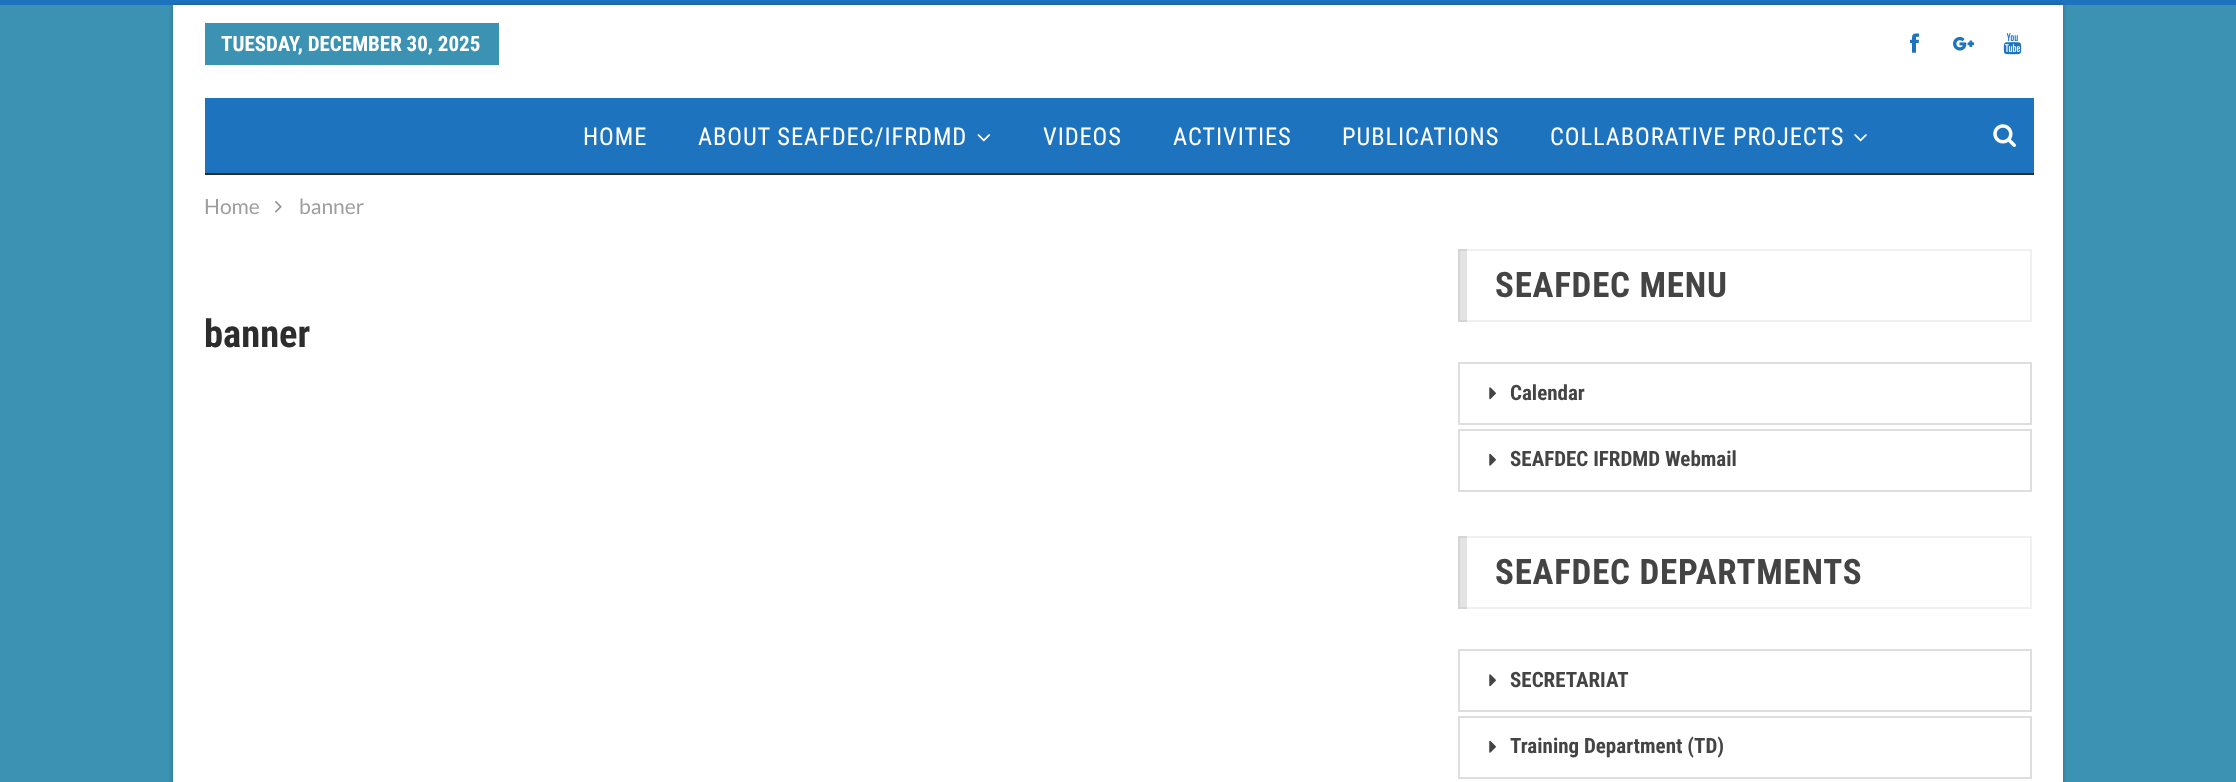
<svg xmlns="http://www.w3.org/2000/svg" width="2236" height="782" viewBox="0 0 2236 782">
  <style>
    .t1 { font: bold 21px Roboto Condensed; fill: #fff; }
    .t2 { font: 24.5px Roboto Condensed; letter-spacing: 0.9px; fill: #fff; }
    .t3 { font: 21px Lato; fill: #9e9e9e; }
    .t4 { font: bold 38.5px Roboto Condensed; fill: #2d2d2d; }
    .t5 { font: bold 35px Roboto Condensed; letter-spacing: 0.75px; fill: #444; }
    .t6 { font: bold 21px Roboto Condensed; fill: #444; }
  </style>
  <rect width="100%" height="100%" fill="#3c92b3"/>
  <rect x="0" y="0" width="2236" height="5" fill="#1e73be"/>
  <rect x="173" y="5" width="1890" height="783" fill="#00000045" filter="blur(2px)"/>
  <rect x="173" y="5" width="1890" height="777" fill="#fff"/>
  <rect x="205" y="23" width="294" height="42" fill="#3c92b3"/>
  <text x="221" y="51" class="t1">TUESDAY, DECEMBER 30, 2025</text>
  <image x="1910" y="33" width="9" height="20" href="images/1.png"/>
  <image x="1953" y="36" width="21" height="15" href="images/2.png"/>
  <image x="2003" y="33" width="19" height="22" href="images/3.png"/>
  <rect x="205" y="98" width="1829" height="75" fill="#1e73be"/>
  <rect x="205" y="173" width="1829" height="2" fill="#292929"/>
  <text x="583" y="145" class="t2">HOME</text>
  <text x="698" y="145" class="t2">ABOUT SEAFDEC/IFRDMD</text>
  <image x="977" y="134" width="14" height="8" href="images/4.png"/>
  <text x="1043" y="145" class="t2">VIDEOS</text>
  <text x="1173" y="145" class="t2">ACTIVITIES</text>
  <text x="1342" y="145" class="t2">PUBLICATIONS</text>
  <text x="1550" y="145" class="t2">COLLABORATIVE PROJECTS</text>
  <image x="1854" y="134" width="13" height="8" href="images/5.png"/>
  <image x="1993" y="124" width="23" height="23" href="images/6.png"/>
  <text x="204" y="214" class="t3">Home</text>
  <image x="275" y="201" width="7" height="12" href="images/7.png"/>
  <text x="299" y="214" class="t3">banner</text>
  <text x="204" y="347" class="t4">banner</text>
  <rect x="1459" y="250" width="572" height="71" fill="none" stroke="#f0f0f0" stroke-width="2"/>
  <rect x="1458" y="249" width="9" height="73" fill="#0000001c"/>
  <text x="1495" y="297" class="t5">SEAFDEC MENU</text>
  <rect x="1459" y="363" width="572" height="61" fill="none" stroke="#dedede" stroke-width="2"/>
  <image x="1489" y="387" width="7" height="13" href="images/8.png"/>
  <text x="1510" y="400" class="t6">Calendar</text>
  <rect x="1459" y="430" width="572" height="61" fill="none" stroke="#dedede" stroke-width="2"/>
  <image x="1489" y="453" width="7" height="13" href="images/9.png"/>
  <text x="1510" y="466" class="t6">SEAFDEC IFRDMD Webmail</text>
  <rect x="1459" y="537" width="572" height="71" fill="none" stroke="#f0f0f0" stroke-width="2"/>
  <rect x="1458" y="536" width="9" height="73" fill="#0000001c"/>
  <text x="1495" y="584" class="t5">SEAFDEC DEPARTMENTS</text>
  <rect x="1459" y="650" width="572" height="61" fill="none" stroke="#dedede" stroke-width="2"/>
  <image x="1489" y="674" width="7" height="13" href="images/8.png"/>
  <text x="1510" y="687" class="t6">SECRETARIAT</text>
  <rect x="1459" y="717" width="572" height="61" fill="none" stroke="#dedede" stroke-width="2"/>
  <image x="1489" y="740" width="7" height="13" href="images/9.png"/>
  <text x="1510" y="753" class="t6">Training Department (TD)</text>
</svg>
